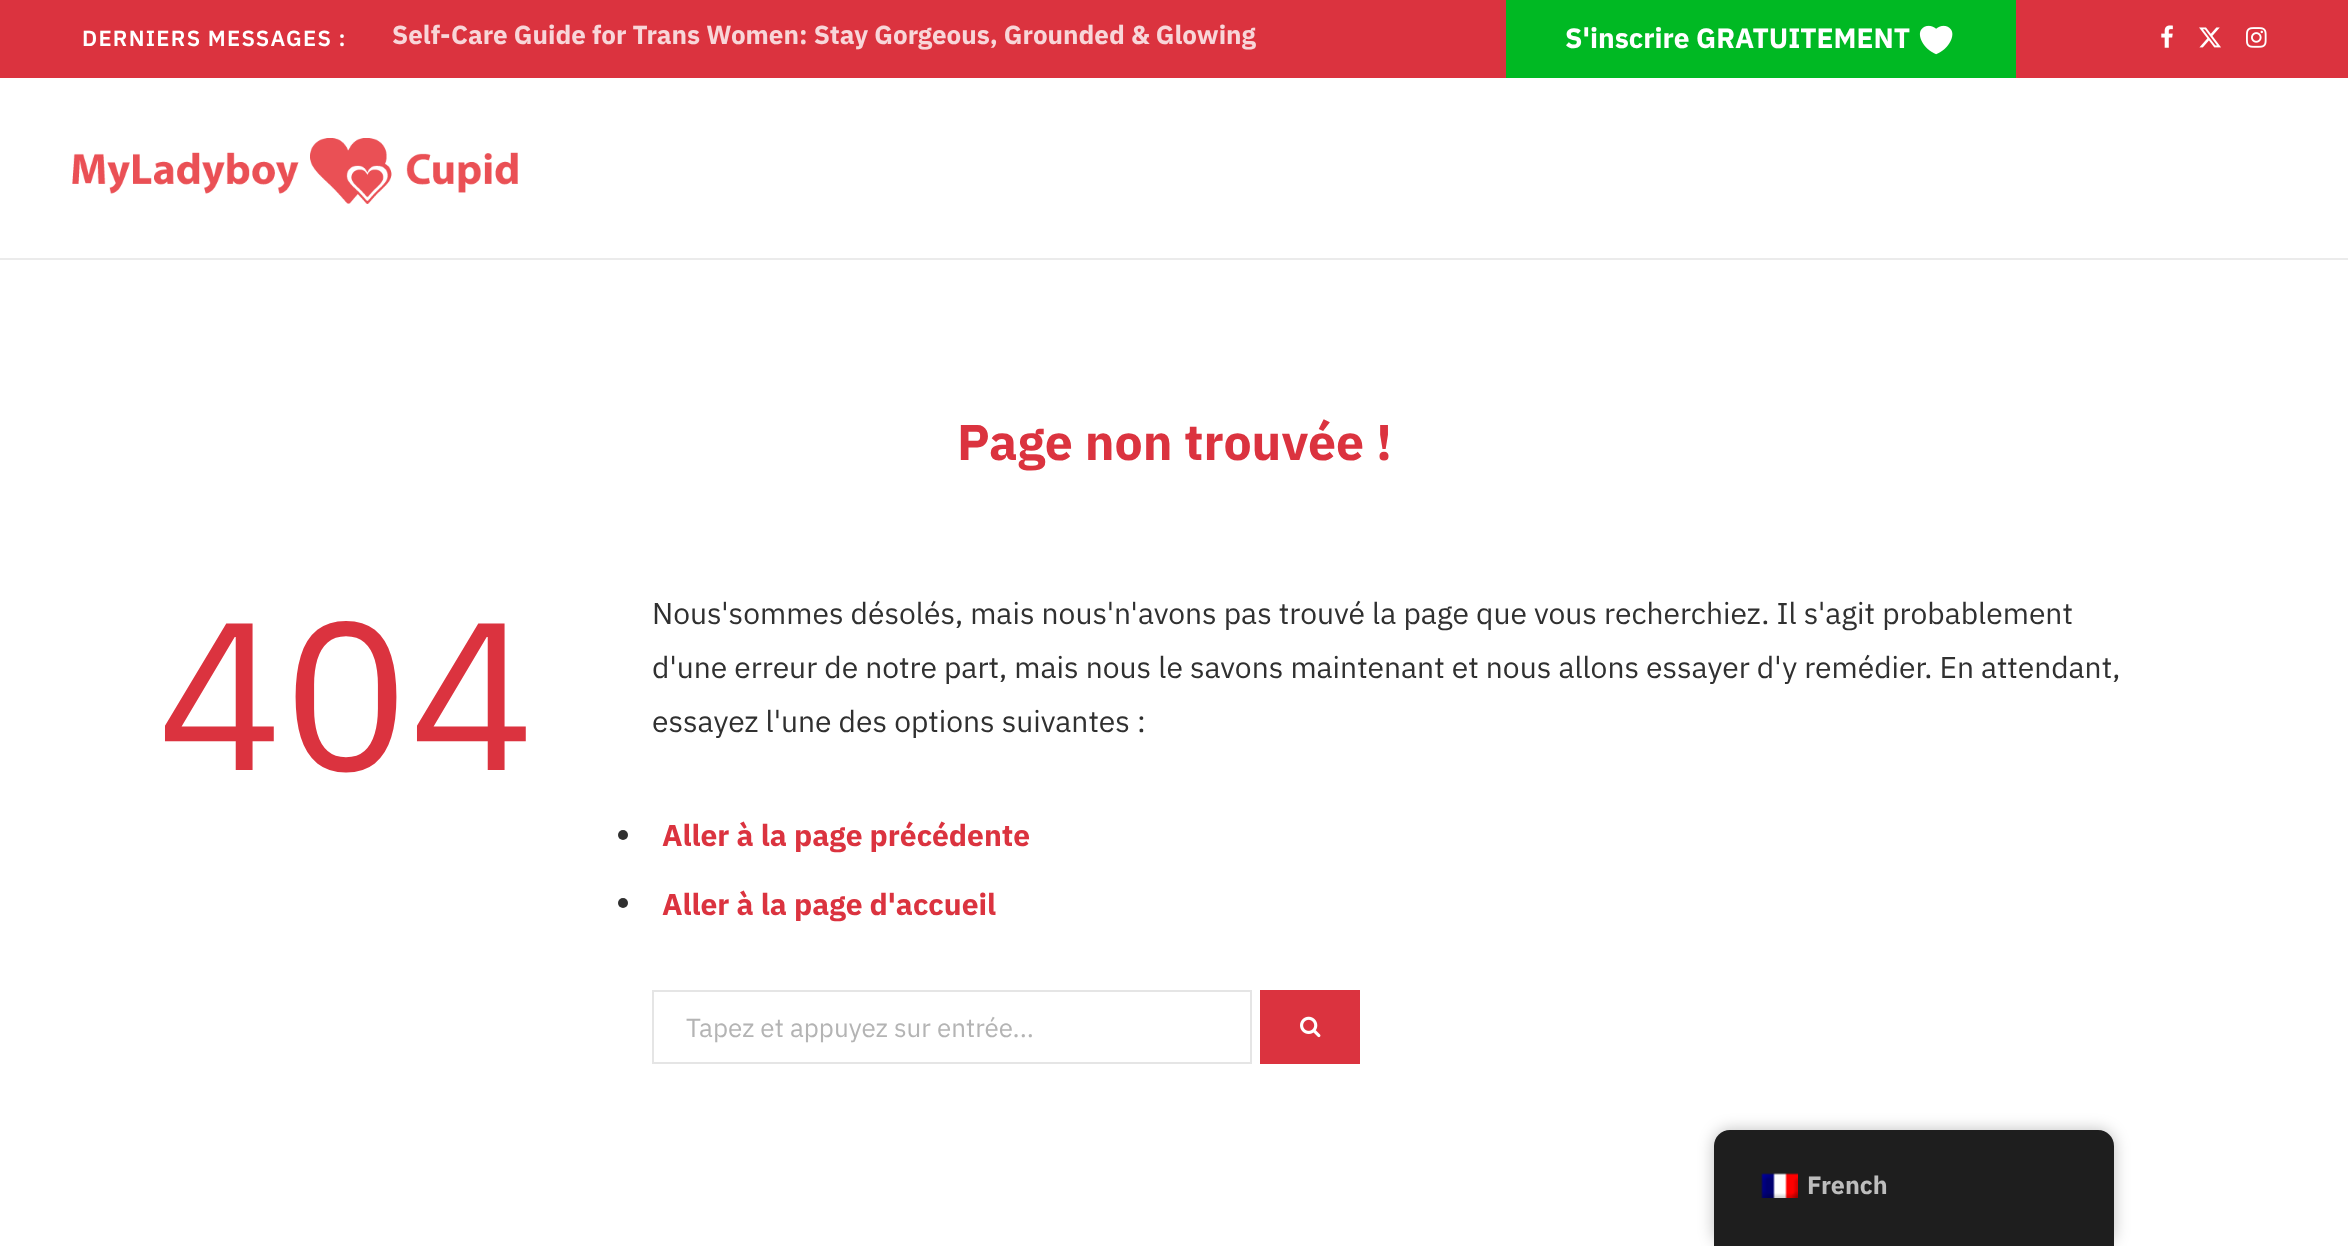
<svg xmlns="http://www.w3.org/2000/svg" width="2348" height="1246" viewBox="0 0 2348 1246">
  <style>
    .t1 { font: 600 22px IBM Plex Sans; letter-spacing: 1.25px; fill: #fff; }
    .t2 { font: bold 26px IBM Plex Sans; fill: #f8d6d9; }
    .t3 { font: bold 28px IBM Plex Sans; fill: #fff; }
    .t4 { font: bold 50px IBM Plex Sans; fill: #db333f; }
    .t5 { font: 210px IBM Plex Sans; fill: #db333f; }
    .t6 { font: 30px IBM Plex Sans; fill: #303030; }
    .t7 { font: bold 30px IBM Plex Sans; fill: #db333f; }
    .t8 { font: 26px IBM Plex Sans; fill: #b4b4b4; }
    .t9 { font: bold 25px IBM Plex Sans; fill: #bdbdbd; }
  </style>
  <rect width="100%" height="100%" fill="#fff"/>
  <rect x="0" y="258" width="2348" height="2" fill="#ebebeb"/>
  <rect x="0" y="0" width="2348" height="78" fill="#db333f"/>
  <text x="82" y="46" class="t1">DERNIERS MESSAGES :</text>
  <text x="392" y="44" class="t2">Self-Care Guide for Trans Women: Stay Gorgeous, Grounded &amp; Glowing</text>
  <rect x="1506" y="0" width="510" height="78" fill="#00b923"/>
  <text x="1565" y="48" class="t3">S'inscrire GRATUITEMENT</text>
  <image x="1919" y="25" width="34" height="30" href="images/1.png"/>
  <image x="2161" y="25" width="12" height="23" href="images/2.png"/>
  <image x="2199" y="27" width="22" height="21" href="images/3.png"/>
  <image x="2246" y="27" width="21" height="21" href="images/4.png"/>
  <image x="72" y="138" width="446" height="66" href="images/5.png"/>
  <text x="957" y="460" class="t4">Page non trouvée !</text>
  <text x="157" y="770" class="t5">404</text>
  <text x="652" y="624" class="t6">Nous'sommes désolés, mais nous'n'avons pas trouvé la page que vous recherchiez. Il s'agit probablement</text>
  <text x="652" y="678" class="t6">d'une erreur de notre part, mais nous le savons maintenant et nous allons essayer d'y remédier. En attendant,</text>
  <text x="652" y="732" class="t6">essayez l'une des options suivantes :</text>
  <circle cx="623" cy="835" r="5" fill="#303030"/>
  <text x="662" y="846" class="t7">Aller à la page précédente</text>
  <circle cx="623" cy="903" r="5" fill="#303030"/>
  <text x="662" y="915" class="t7">Aller à la page d'accueil</text>
  <rect x="653" y="991" width="598" height="72" fill="none" stroke="#e5e5e5" stroke-width="2"/>
  <text x="686" y="1037" class="t8">Tapez et appuyez sur entrée...</text>
  <rect x="1260" y="990" width="100" height="74" fill="#db333f"/>
  <image x="1300" y="1016" width="21" height="22" href="images/6.png"/>
  <rect x="1714" y="1130" width="400" height="116" rx="16" fill="#00000040" filter="blur(8px)"/>
  <path d="M1730 1130H2098C2107 1130 2114 1137 2114 1146V1246H1714V1146C1714 1137 1721 1130 1730 1130Z" fill="#1e1e1e"/>
  <image x="1761" y="1173" width="37" height="25" href="images/7.png"/>
  <text x="1807" y="1194" class="t9">French</text>
</svg>
